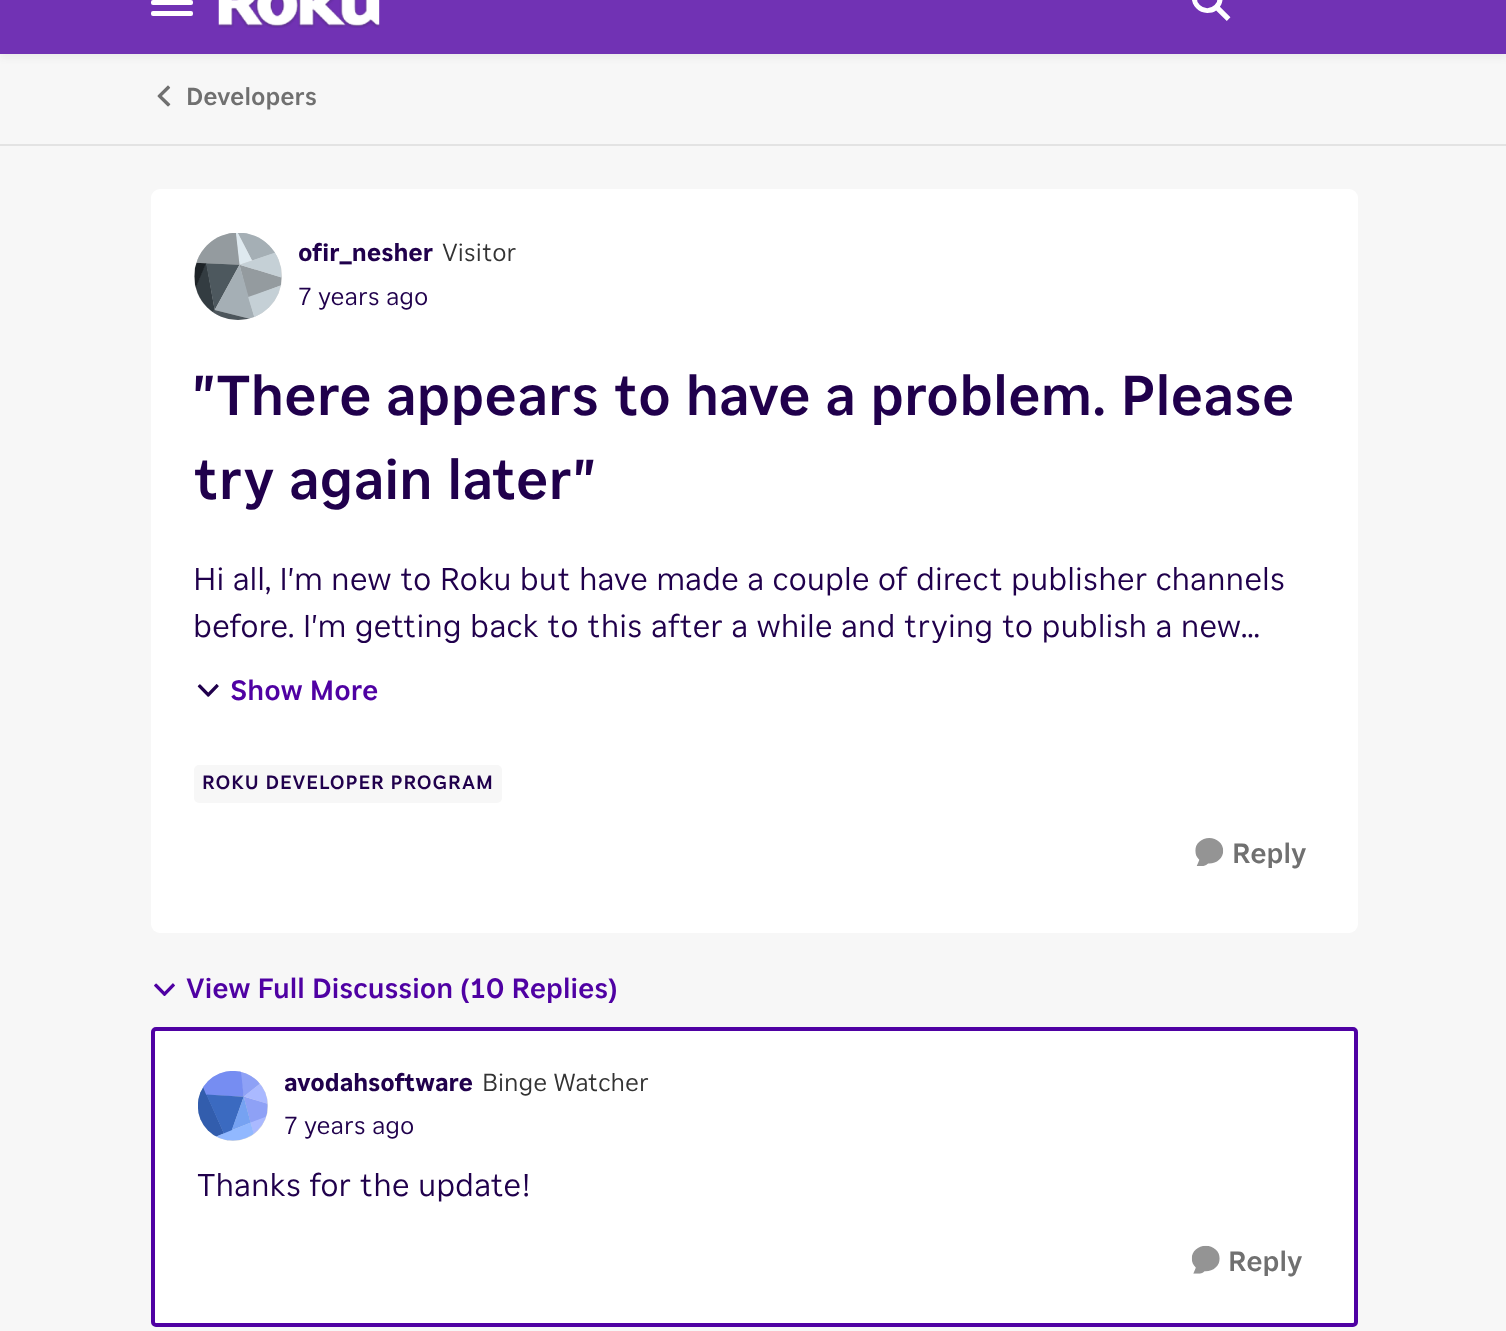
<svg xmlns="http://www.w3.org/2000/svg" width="1506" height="1331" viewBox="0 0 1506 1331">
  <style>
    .t1 { font: 500 24.5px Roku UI; fill: #707070; }
    .t2 { font: bold 24.5px Roku UI; fill: #20004c; }
    .t3 { font: 24.5px Roku UI; fill: #333; }
    .t4 { font: 24.5px Roku UI; fill: #20004c; }
    .t5 { font: 500 56px Roku UI; fill: #20004c; }
    .t6 { font: 31.5px Roku UI; fill: #20004c; }
    .t7 { font: 500 28px Roku UI; fill: #4f01a3; }
    .t8 { font: 500 19.25px Roku UI; letter-spacing: 0.9px; fill: #20004c; }
    .t9 { font: 500 28px Roku UI; fill: #707070; }
  </style>
  <rect width="100%" height="100%" fill="#f7f7f7"/>
  <rect x="0" y="-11" width="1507" height="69" fill="#3333330f" filter="blur(3.5px)"/>
  <rect x="0" y="0" width="1506" height="54" fill="#7132b4"/>
  <rect x="151" y="0" width="42" height="5" rx="2" fill="#fff"/>
  <rect x="151" y="11" width="42" height="5" rx="2" fill="#fff"/>
  <image x="218" y="0" width="162" height="28" href="images/1.png"/>
  <image x="1192" y="0" width="39" height="21" href="images/2.png"/>
  <rect x="0" y="144" width="1506" height="2" fill="#e3e3e3"/>
  <image x="157" y="85" width="14" height="22" href="images/3.png"/>
  <text x="186" y="105" class="t1">Developers</text>
  <rect x="151" y="189" width="1207" height="744" rx="9" fill="#fff"/>
  <rect x="194" y="233" width="88" height="87" rx="43.5" fill="#d9d9d9"/>
  <image x="194" y="233" width="88" height="87" href="images/4.png"/>
  <text x="298" y="261" class="t2">ofir_nesher</text>
  <text x="442" y="261" class="t3">Visitor</text>
  <text x="298" y="305" class="t4">7 years ago</text>
  <text x="193" y="415" class="t5">"There appears to have a problem. Please</text>
  <text x="193" y="499" class="t5">try again later"</text>
  <text x="193" y="590" class="t6">Hi all, I'm new to Roku but have made a couple of direct publisher channels</text>
  <text x="193" y="637" class="t6">before. I'm getting back to this after a while and trying to publish a new…</text>
  <image x="197" y="684" width="22" height="13" href="images/5.png"/>
  <text x="230" y="700" class="t7">Show More</text>
  <rect x="194" y="765" width="308" height="38" rx="5" fill="#f7f7f7"/>
  <text x="202" y="789" class="t8">ROKU DEVELOPER PROGRAM</text>
  <image x="1195" y="838" width="29" height="28" href="images/6.png"/>
  <text x="1232" y="863" class="t9">Reply</text>
  <image x="154" y="983" width="21" height="13" href="images/7.png"/>
  <text x="186" y="998" class="t7">View Full Discussion (10 Replies)</text>
  <rect x="153" y="1029" width="1203" height="296" rx="3" fill="#fff" stroke="#4f01a3" stroke-width="4"/>
  <circle cx="233" cy="1106" r="35" fill="#d9d9d9"/>
  <image x="198" y="1071" width="70" height="70" href="images/8.png"/>
  <text x="284" y="1091" class="t2">avodahsoftware</text>
  <text x="482" y="1091" class="t3">Binge Watcher</text>
  <text x="284" y="1134" class="t4">7 years ago</text>
  <text x="197" y="1196" class="t6">Thanks for the update!</text>
  <image x="1191" y="1245" width="29" height="29" href="images/9.png"/>
  <text x="1228" y="1271" class="t9">Reply</text>
</svg>
